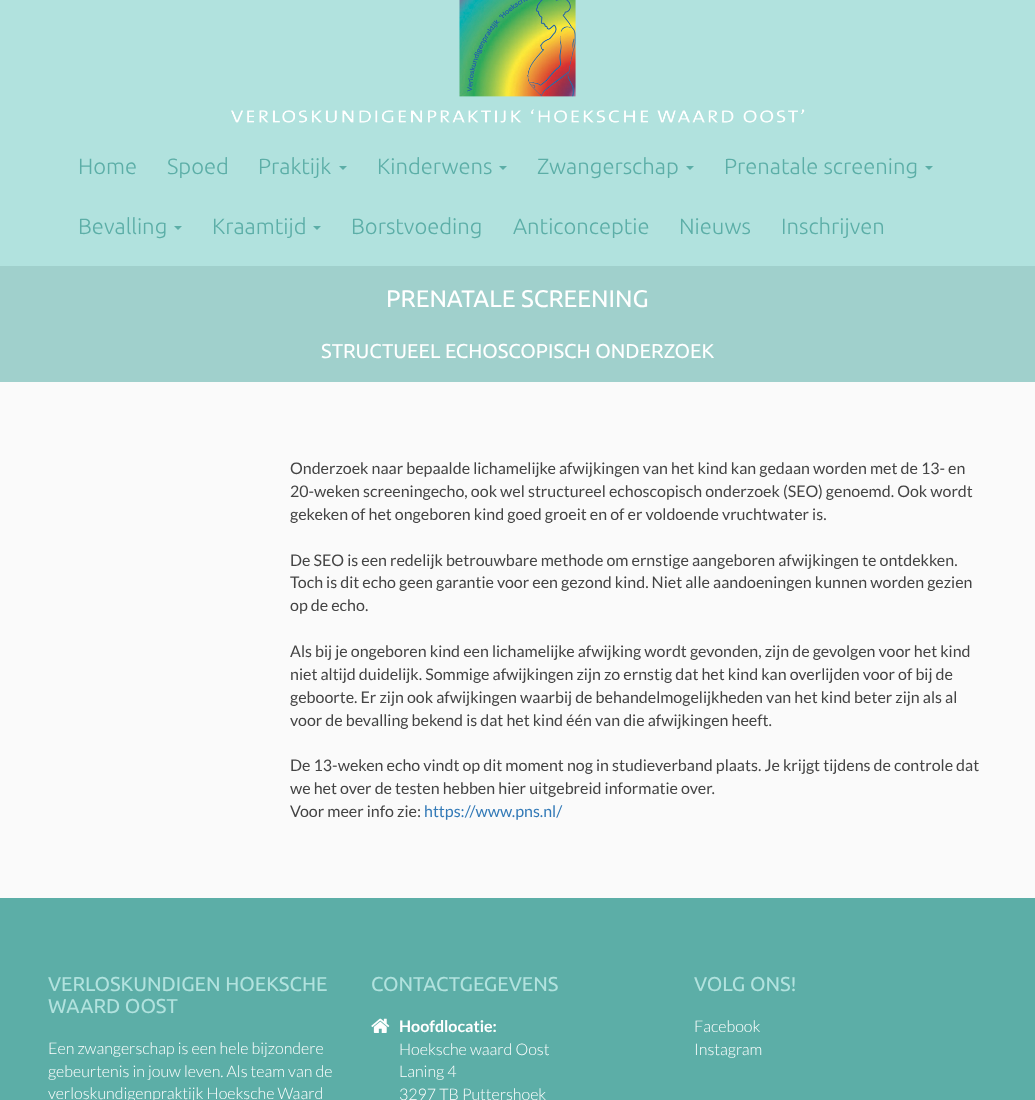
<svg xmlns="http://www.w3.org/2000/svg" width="1035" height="1100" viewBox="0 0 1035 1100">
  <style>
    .t1 { font: 300 22px Ubuntu; fill: #5caea7; }
    .t2 { font: 24px Ubuntu; fill: #fff; }
    .t3 { font: 20px Ubuntu; fill: #fff; }
    .t4 { font: 16px Lato; fill: #444; }
    .t5 { font: 16px Lato; fill: #337ab7; }
    .t6 { font: 20px Ubuntu; fill: #b1e2de; }
    .t7 { font: 300 16px Lato; fill: #fff; }
    .t8 { font: bold 16px Lato; fill: #fff; }
  </style>
  <rect width="100%" height="100%" fill="#fafafa"/>
  <rect x="0" y="0" width="1035" height="266" fill="#b1e2de"/>
  <image x="231" y="0" width="574" height="123" href="images/1.png"/>
  <text x="78" y="174" class="t1">Home</text>
  <text x="167" y="174" class="t1">Spoed</text>
  <text x="258" y="174" class="t1">Praktijk</text>
  <path d="M339 166H347L343 170Z" fill="#5caea7"/>
  <text x="377" y="174" class="t1">Kinderwens</text>
  <path d="M499 166H507L503 170Z" fill="#5caea7"/>
  <text x="537" y="174" class="t1">Zwangerschap</text>
  <path d="M686 166H694L690 170Z" fill="#5caea7"/>
  <text x="724" y="174" class="t1">Prenatale screening</text>
  <path d="M925 166H933L929 170Z" fill="#5caea7"/>
  <text x="78" y="234" class="t1">Bevalling</text>
  <path d="M174 226H182L178 230Z" fill="#5caea7"/>
  <text x="212" y="234" class="t1">Kraamtijd</text>
  <path d="M313 226H321L317 230Z" fill="#5caea7"/>
  <text x="351" y="234" class="t1">Borstvoeding</text>
  <text x="513" y="234" class="t1">Anticonceptie</text>
  <text x="679" y="234" class="t1">Nieuws</text>
  <text x="781" y="234" class="t1">Inschrijven</text>
  <rect x="0" y="266" width="1035" height="116" fill="#a0d0cc"/>
  <text x="386" y="307" class="t2">PRENATALE SCREENING</text>
  <text x="321" y="358" class="t3">STRUCTUEEL ECHOSCOPISCH ONDERZOEK</text>
  <text x="290" y="474" class="t4">Onderzoek naar bepaalde lichamelijke afwijkingen van het kind kan gedaan worden met de 13- en</text>
  <text x="290" y="497" class="t4">20-weken screeningecho, ook wel structureel echoscopisch onderzoek (SEO) genoemd. Ook wordt</text>
  <text x="290" y="520" class="t4">gekeken of het ongeboren kind goed groeit en of er voldoende vruchtwater is.</text>
  <text x="290" y="566" class="t4">De SEO is een redelijk betrouwbare methode om ernstige aangeboren afwijkingen te ontdekken.</text>
  <text x="290" y="588" class="t4">Toch is dit echo geen garantie voor een gezond kind. Niet alle aandoeningen kunnen worden gezien</text>
  <text x="290" y="611" class="t4">op de echo.</text>
  <text x="290" y="657" class="t4">Als bij je ongeboren kind een lichamelijke afwijking wordt gevonden, zijn de gevolgen voor het kind</text>
  <text x="290" y="680" class="t4">niet altijd duidelijk. Sommige afwijkingen zijn zo ernstig dat het kind kan overlijden voor of bij de</text>
  <text x="290" y="703" class="t4">geboorte. Er zijn ook afwijkingen waarbij de behandelmogelijkheden van het kind beter zijn als al</text>
  <text x="290" y="726" class="t4">voor de bevalling bekend is dat het kind één van die afwijkingen heeft.</text>
  <text x="290" y="771" class="t4">De 13-weken echo vindt op dit moment nog in studieverband plaats. Je krijgt tijdens de controle dat</text>
  <text x="290" y="794" class="t4">we het over de testen hebben hier uitgebreid informatie over.</text>
  <text x="290" y="817" class="t4">Voor meer info zie:</text>
  <text x="424" y="817" class="t5">https://www.pns.nl/</text>
  <rect x="0" y="898" width="1035" height="202" fill="#5caea7"/>
  <text x="48" y="991" class="t6">VERLOSKUNDIGEN HOEKSCHE</text>
  <text x="48" y="1013" class="t6">WAARD OOST</text>
  <text x="48" y="1054" class="t7">Een zwangerschap is een hele bijzondere</text>
  <text x="48" y="1077" class="t7">gebeurtenis in jouw leven. Als team van de</text>
  <text x="48" y="1099" class="t7">verloskundigenpraktijk Hoeksche Waard</text>
  <text x="371" y="991" class="t6">CONTACTGEGEVENS</text>
  <image x="371" y="1018" width="19" height="15" href="images/2.png"/>
  <text x="399" y="1032" class="t8">Hoofdlocatie:</text>
  <text x="399" y="1055" class="t7">Hoeksche waard Oost</text>
  <text x="399" y="1077" class="t7">Laning 4</text>
  <text x="399" y="1100" class="t7">3297 TB Puttershoek</text>
  <text x="694" y="991" class="t6">VOLG ONS!</text>
  <text x="694" y="1032" class="t7">Facebook</text>
  <text x="694" y="1055" class="t7">Instagram</text>
</svg>
